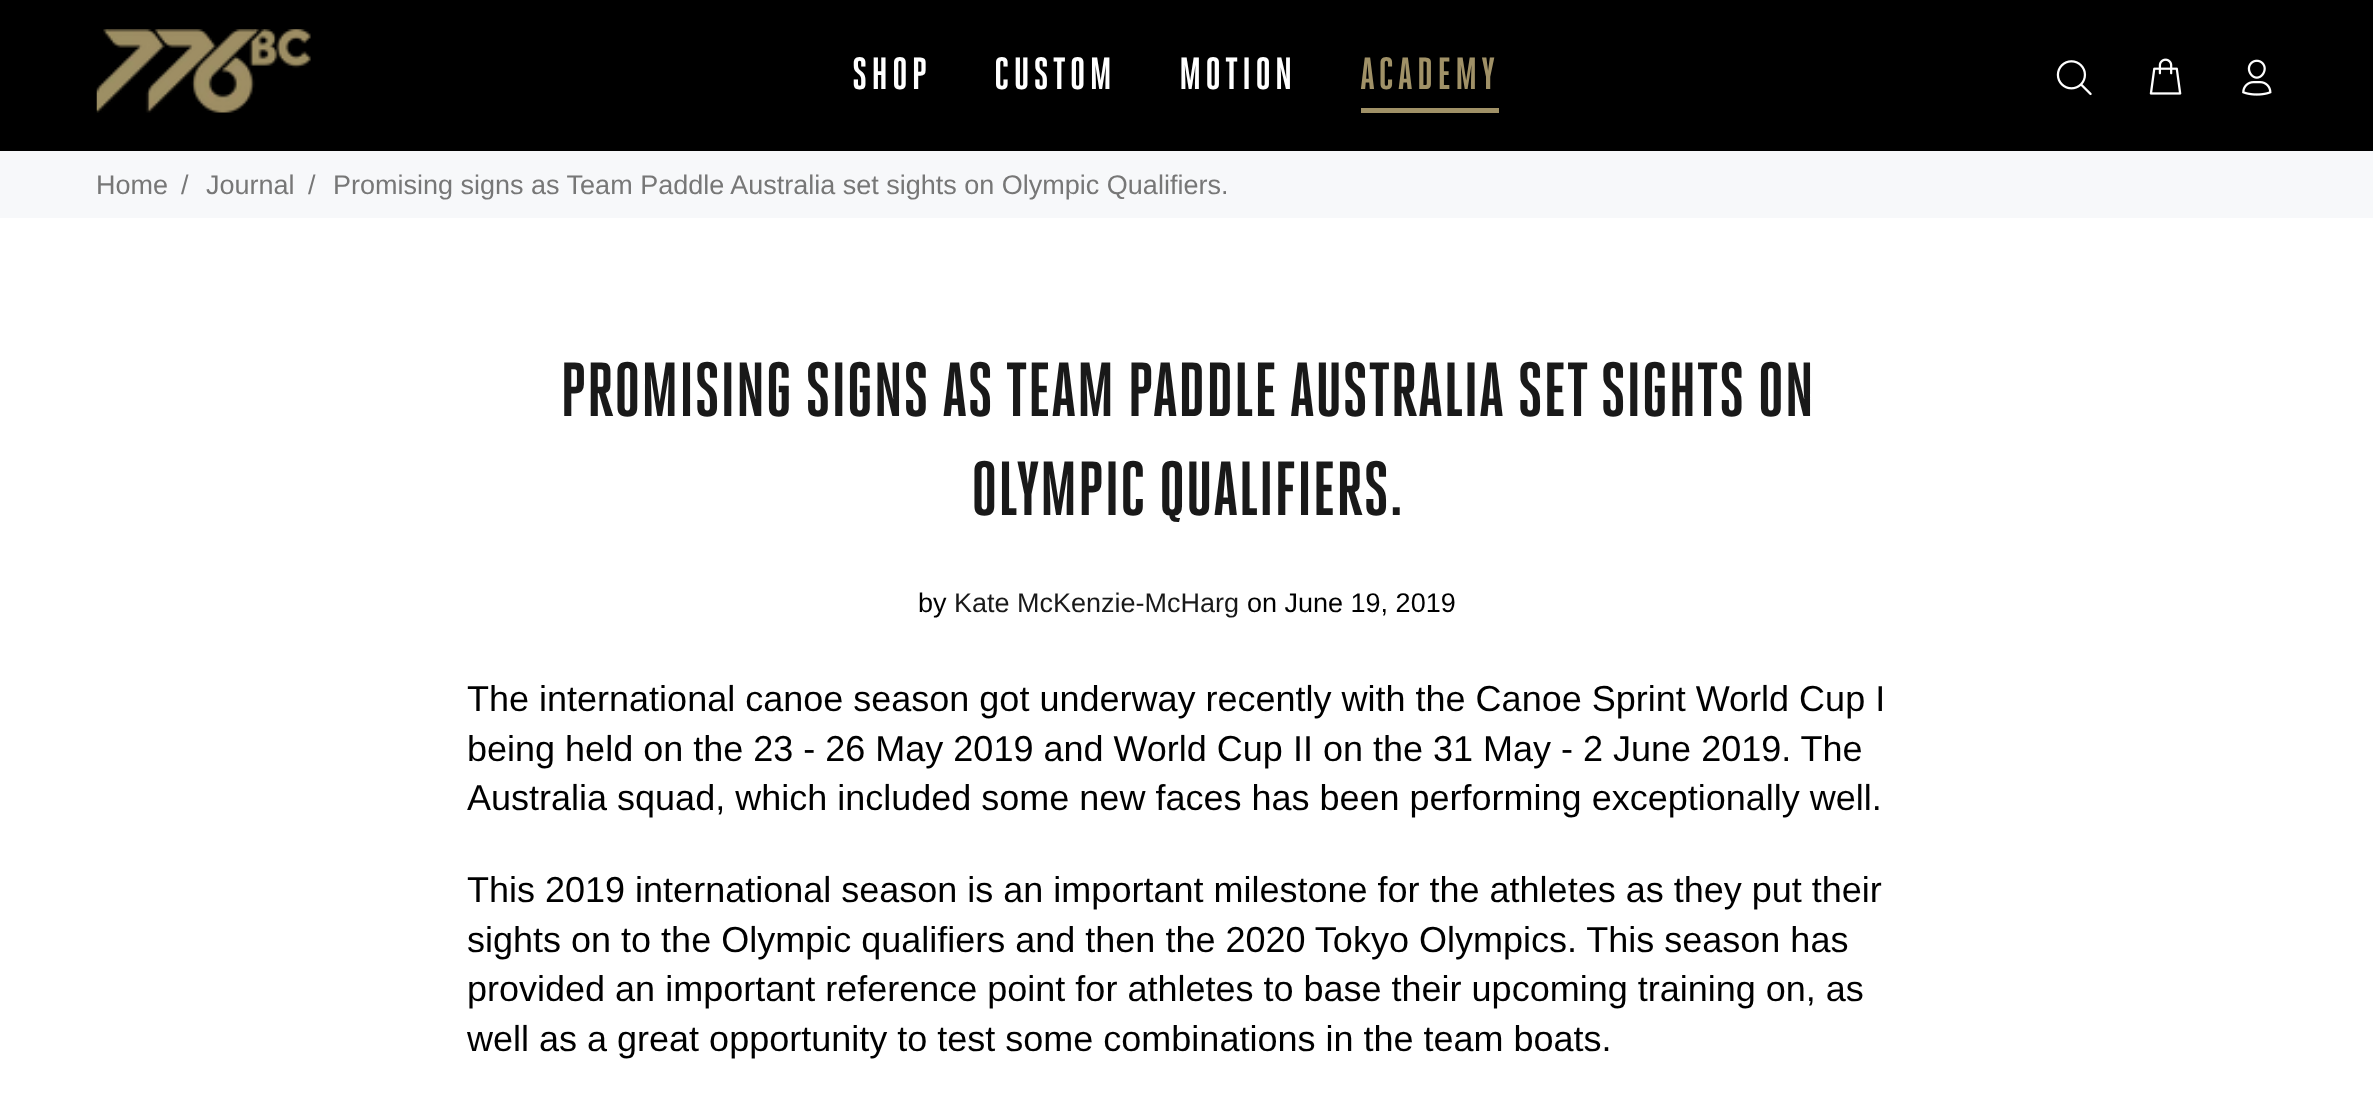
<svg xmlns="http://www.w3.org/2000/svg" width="2373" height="1098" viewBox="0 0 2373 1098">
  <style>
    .t1 { font: bold 45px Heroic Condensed; letter-spacing: 4px; fill: #fff; }
    .t2 { font: bold 45px Heroic Condensed; letter-spacing: 4px; fill: #a09167; }
    .t3 { font: 27px Liberation Sans; fill: #777; }
    .t4 { font: bold 76.5px Heroic Condensed; fill: #191919; }
    .t5 { font: 27px Liberation Sans; fill: #000; }
    .t6 { font: 27px Liberation Sans; fill: #191919; }
    .t7 { font: 36px Liberation Sans; fill: #000; }
  </style>
  <rect width="100%" height="100%" fill="#fff"/>
  <rect x="0" y="0" width="2373" height="151" fill="#000"/>
  <image x="96" y="29" width="215" height="84" href="images/1.png"/>
  <text x="852" y="89" class="t1">SHOP</text>
  <text x="994" y="89" class="t1">CUSTOM</text>
  <text x="1179" y="89" class="t1">MOTION</text>
  <text x="1360" y="89" class="t2">ACADEMY</text>
  <rect x="1361" y="108" width="138" height="5" fill="#a09167"/>
  <image x="2056" y="60" width="36" height="36" href="images/2.png"/>
  <image x="2149" y="58" width="33" height="37" href="images/3.png"/>
  <image x="2242" y="59" width="30" height="37" href="images/4.png"/>
  <rect x="0" y="151" width="2373" height="67" fill="#f7f8fa"/>
  <text x="96" y="194" class="t3">Home</text>
  <text x="181" y="194" class="t3">/</text>
  <text x="206" y="194" class="t3">Journal</text>
  <text x="308" y="194" class="t3">/</text>
  <text x="333" y="194" class="t3">Promising signs as Team Paddle Australia set sights on Olympic Qualifiers.</text>
  <text x="560" y="416" class="t4">PROMISING SIGNS AS TEAM PADDLE AUSTRALIA SET SIGHTS ON</text>
  <text x="971" y="515" class="t4">OLYMPIC QUALIFIERS.</text>
  <text x="918" y="612" class="t5">by</text>
  <text x="954" y="612" class="t6">Kate McKenzie-McHarg</text>
  <text x="1247" y="612" class="t5">on June 19, 2019</text>
  <text x="467" y="711" class="t7">The international canoe season got underway recently with the Canoe Sprint World Cup I</text>
  <text x="467" y="761" class="t7">being held on the 23 - 26 May 2019 and World Cup II on the 31 May - 2 June 2019. The</text>
  <text x="467" y="810" class="t7">Australia squad, which included some new faces has been performing exceptionally well.</text>
  <text x="467" y="902" class="t7">This 2019 international season is an important milestone for the athletes as they put their</text>
  <text x="467" y="952" class="t7">sights on to the Olympic qualifiers and then the 2020 Tokyo Olympics. This season has</text>
  <text x="467" y="1001" class="t7">provided an important reference point for athletes to base their upcoming training on, as</text>
  <text x="467" y="1051" class="t7">well as a great opportunity to test some combinations in the team boats.</text>
</svg>
